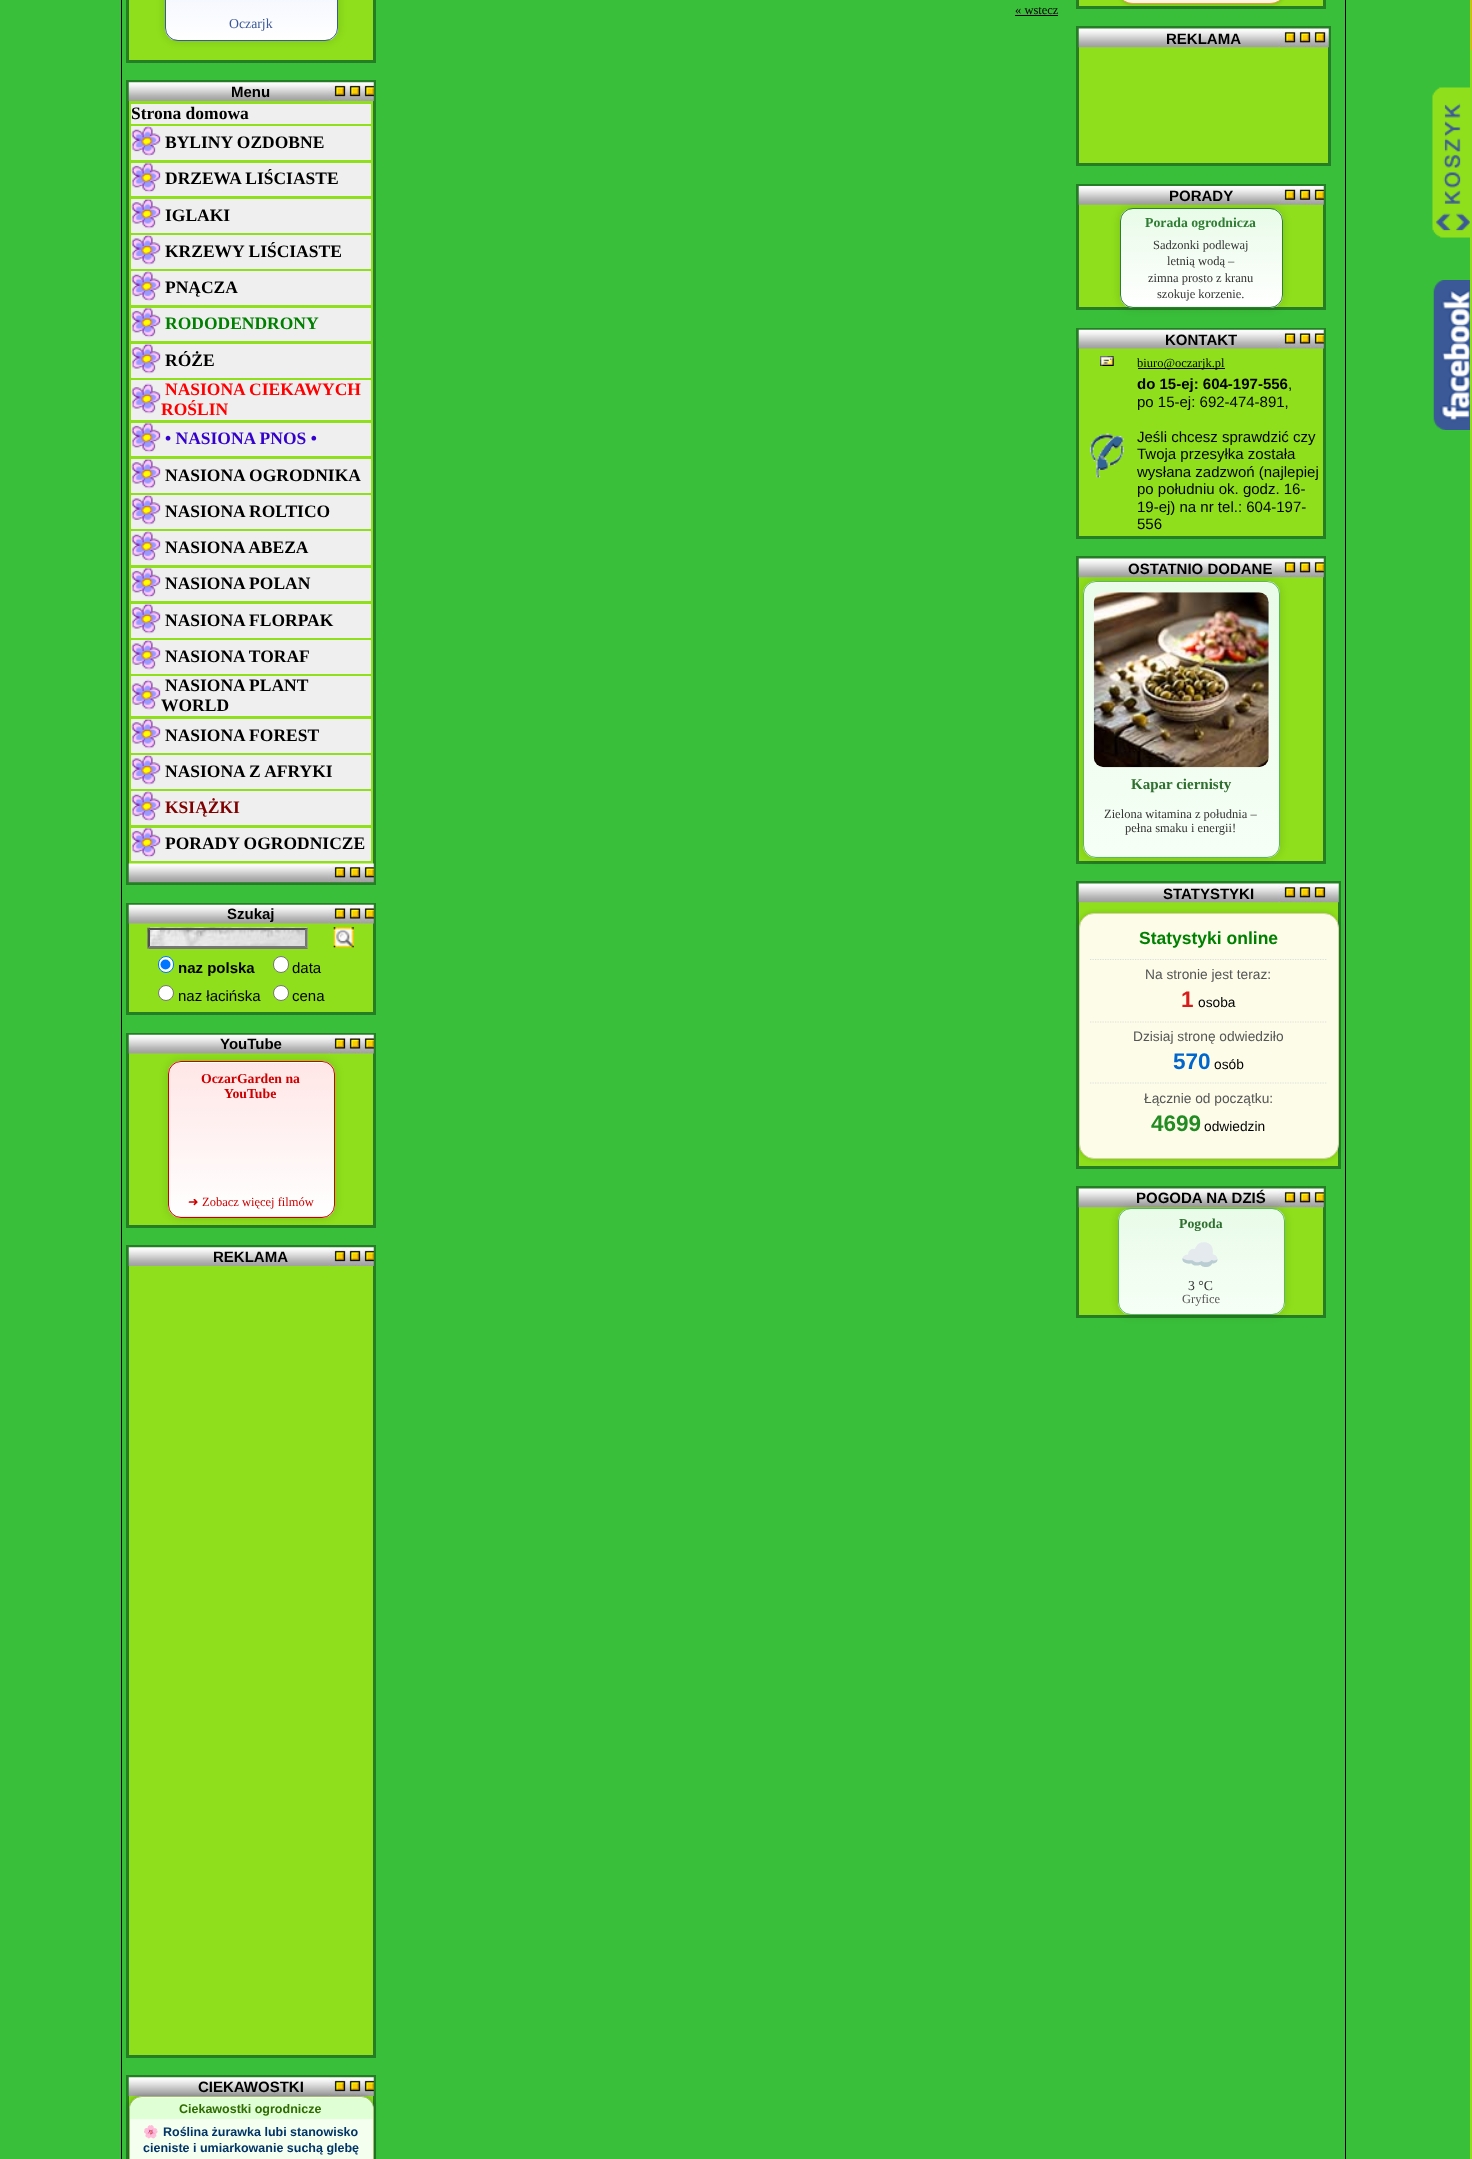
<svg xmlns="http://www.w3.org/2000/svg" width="1472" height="2159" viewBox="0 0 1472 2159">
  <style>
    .t1 { font: 12.5px Liberation Serif; fill: #000; }
    .t2 { font: 13.75px Liberation Serif; fill: #3b5998; }
    .t3 { font: bold 15px Liberation Sans; fill: #000; }
    .t4 { font: bold 17.5px Liberation Serif; fill: #000; }
    .t5 { font: bold 17.5px Liberation Serif; fill: #008000; }
    .t6 { font: bold 17.5px Liberation Serif; fill: #f00; }
    .t7 { font: bold 17.5px Liberation Serif; fill: #30c; }
    .t8 { font: bold 17.5px Liberation Serif; fill: #800000; }
    .t9 { font: 15px Liberation Sans; fill: #000; }
    .t10 { font: bold 13.75px Liberation Serif; fill: #c00; }
    .t11 { font: 12.5px DejaVu Sans; fill: #c00; }
    .t12 { font: 12.5px Liberation Serif; fill: #c00; }
    .t13 { font: bold 12.5px Liberation Sans; fill: #2f6b00; }
    .t14 { font: bold 12.5px Noto Color Emoji; fill: #036; }
    .t15 { font: bold 12.5px Liberation Sans; fill: #036; }
    .t16 { font: bold 13.75px Liberation Serif; fill: #2e7d32; }
    .t17 { font: 12.5px Liberation Serif; fill: #333; }
    .t18 { font: bold 15px Liberation Serif; fill: #2f6f2f; }
    .t19 { font: bold 17.5px Liberation Sans; fill: #008000; }
    .t20 { font: 13.75px Liberation Sans; fill: #555; }
    .t21 { font: bold 22.5px Liberation Sans; fill: #d81c1c; }
    .t22 { font: 13.75px Liberation Sans; fill: #000; }
    .t23 { font: bold 22.5px Liberation Sans; fill: #06c; }
    .t24 { font: bold 22.5px Liberation Sans; fill: #228b22; }
    .t25 { font: bold 13.75px Liberation Serif; fill: #2f6f2f; }
    .t26 { font: 32px Noto Color Emoji; fill: #000; }
    .t27 { font: 13.75px Liberation Serif; fill: #333; }
    .t28 { font: 12.5px Liberation Serif; fill: #555; }
  </style>
  <defs>
    <clipPath id="clip1"><rect x="165" y="-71" width="173" height="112" rx="13"/></clipPath>
    <linearGradient id="g1" gradientUnits="userSpaceOnUse" x1="251" y1="-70" x2="251" y2="40"><stop offset="0" stop-color="#e6ecff"/><stop offset="1" stop-color="#fff"/></linearGradient>
    <clipPath id="clip2"><rect x="168" y="1061" width="167" height="157" rx="13"/></clipPath>
    <linearGradient id="g2" gradientUnits="userSpaceOnUse" x1="251" y1="909" x2="251" y2="1063"><stop offset="0" stop-color="#ffe6e6"/><stop offset="1" stop-color="#fff"/></linearGradient>
    <linearGradient id="g3" gradientUnits="userSpaceOnUse" x1="251" y1="1063" x2="251" y2="1216"><stop offset="0" stop-color="#ffe6e6"/><stop offset="1" stop-color="#fff"/></linearGradient>
    <linearGradient id="g4" gradientUnits="userSpaceOnUse" x1="251" y1="1216" x2="251" y2="1370"><stop offset="0" stop-color="#ffe6e6"/><stop offset="1" stop-color="#fff"/></linearGradient>
    <clipPath id="clip3"><rect x="1120" y="208" width="163" height="100" rx="13"/></clipPath>
    <linearGradient id="g5" gradientUnits="userSpaceOnUse" x1="1201" y1="209" x2="1201" y2="306"><stop offset="0" stop-color="#e8fbe8"/><stop offset="1" stop-color="#fff"/></linearGradient>
    <linearGradient id="g6" gradientUnits="userSpaceOnUse" x1="1201" y1="306" x2="1201" y2="404"><stop offset="0" stop-color="#e8fbe8"/><stop offset="1" stop-color="#fff"/></linearGradient>
    <clipPath id="clip4"><rect x="1083" y="581" width="197" height="277" rx="13"/></clipPath>
    <linearGradient id="g7" gradientUnits="userSpaceOnUse" x1="1181" y1="309" x2="1181" y2="583"><stop offset="0" stop-color="#e9fbe9"/><stop offset="1" stop-color="#f6fff6"/></linearGradient>
    <linearGradient id="g8" gradientUnits="userSpaceOnUse" x1="1181" y1="583" x2="1181" y2="856"><stop offset="0" stop-color="#e9fbe9"/><stop offset="1" stop-color="#f6fff6"/></linearGradient>
    <linearGradient id="g9" gradientUnits="userSpaceOnUse" x1="1181" y1="856" x2="1181" y2="1130"><stop offset="0" stop-color="#e9fbe9"/><stop offset="1" stop-color="#f6fff6"/></linearGradient>
    <clipPath id="clip5"><rect x="1118" y="1208" width="167" height="107" rx="13"/></clipPath>
    <linearGradient id="g10" gradientUnits="userSpaceOnUse" x1="1201" y1="1209" x2="1201" y2="1314"><stop offset="0" stop-color="#e9fbe9"/><stop offset="1" stop-color="#f6fff6"/></linearGradient>
  </defs>
  <rect width="100%" height="100%" fill="#3abf3a"/>
  <rect x="121.5" y="-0.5" width="1224" height="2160" fill="none" stroke="#000"/>
  <text x="1015" y="14" class="t1">« wstecz</text>
  <rect x="1015" y="15" width="43" height="1" fill="#000"/>
  <rect x="127.5" y="-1.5" width="247" height="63" fill="#8fdf1c" stroke="#257d25" stroke-width="3"/>
  <rect x="165" y="-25" width="173" height="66" rx="13" fill="#00000026" filter="blur(4px)"/>
  <g clip-path="url(#clip1)">
    <rect x="165" y="0" width="173" height="40" fill="url(#g1)"/>
  </g>
  <rect x="165.5" y="-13.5" width="172" height="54" rx="12.5" fill="none" stroke="#3b5998"/>
  <text x="229" y="28" class="t2">Oczarjk</text>
  <rect x="129" y="101" width="244" height="763" fill="#8fdf1c"/>
  <rect x="127.5" y="81.5" width="247" height="802" fill="none" stroke="#257d25" stroke-width="3"/>
  <image x="128" y="82" width="246" height="19" href="images/1.png"/>
  <text x="231" y="97" class="t3">Menu</text>
  <rect x="131" y="104" width="240" height="20" fill="#efefef"/>
  <text x="131" y="119" class="t4">Strona domowa</text>
  <rect x="131" y="126" width="240" height="34" fill="#efefef"/>
  <image x="131" y="126" width="30" height="30" href="images/2.png"/>
  <text x="165" y="148" class="t4">BYLINY OZDOBNE</text>
  <rect x="131" y="163" width="240" height="33" fill="#efefef"/>
  <image x="131" y="162" width="30" height="31" href="images/3.png"/>
  <text x="165" y="184" class="t4">DRZEWA LIŚCIASTE</text>
  <rect x="131" y="199" width="240" height="34" fill="#efefef"/>
  <image x="131" y="198" width="30" height="31" href="images/4.png"/>
  <text x="165" y="221" class="t4">IGLAKI</text>
  <rect x="131" y="235" width="240" height="34" fill="#efefef"/>
  <image x="131" y="234" width="30" height="31" href="images/5.png"/>
  <text x="165" y="257" class="t4">KRZEWY LIŚCIASTE</text>
  <rect x="131" y="271" width="240" height="34" fill="#efefef"/>
  <image x="131" y="271" width="30" height="30" href="images/2.png"/>
  <text x="165" y="293" class="t4">PNĄCZA</text>
  <rect x="131" y="308" width="240" height="33" fill="#efefef"/>
  <image x="131" y="307" width="30" height="31" href="images/3.png"/>
  <text x="165" y="329" class="t5">RODODENDRONY</text>
  <rect x="131" y="344" width="240" height="34" fill="#efefef"/>
  <image x="131" y="343" width="30" height="31" href="images/4.png"/>
  <text x="165" y="366" class="t4">RÓŻE</text>
  <rect x="131" y="380" width="240" height="40" fill="#efefef"/>
  <image x="131" y="383" width="30" height="31" href="images/6.png"/>
  <text x="165" y="395" class="t6">NASIONA CIEKAWYCH</text>
  <text x="161" y="415" class="t6">ROŚLIN</text>
  <rect x="131" y="423" width="240" height="33" fill="#efefef"/>
  <image x="131" y="422" width="30" height="31" href="images/3.png"/>
  <text x="165" y="444" class="t7">• NASIONA PNOS •</text>
  <rect x="131" y="459" width="240" height="34" fill="#efefef"/>
  <image x="131" y="458" width="30" height="31" href="images/4.png"/>
  <text x="165" y="481" class="t4">NASIONA OGRODNIKA</text>
  <rect x="131" y="495" width="240" height="34" fill="#efefef"/>
  <image x="131" y="494" width="30" height="31" href="images/5.png"/>
  <text x="165" y="517" class="t4">NASIONA ROLTICO</text>
  <rect x="131" y="531" width="240" height="34" fill="#efefef"/>
  <image x="131" y="531" width="30" height="30" href="images/7.png"/>
  <text x="165" y="553" class="t4">NASIONA ABEZA</text>
  <rect x="131" y="568" width="240" height="33" fill="#efefef"/>
  <image x="131" y="567" width="30" height="31" href="images/3.png"/>
  <text x="165" y="589" class="t4">NASIONA POLAN</text>
  <rect x="131" y="604" width="240" height="34" fill="#efefef"/>
  <image x="131" y="603" width="30" height="31" href="images/4.png"/>
  <text x="165" y="626" class="t4">NASIONA FLORPAK</text>
  <rect x="131" y="640" width="240" height="34" fill="#efefef"/>
  <image x="131" y="639" width="30" height="31" href="images/5.png"/>
  <text x="165" y="662" class="t4">NASIONA TORAF</text>
  <rect x="131" y="676" width="240" height="40" fill="#efefef"/>
  <image x="131" y="679" width="30" height="31" href="images/8.png"/>
  <text x="165" y="691" class="t4">NASIONA PLANT</text>
  <text x="161" y="711" class="t4">WORLD</text>
  <rect x="131" y="719" width="240" height="34" fill="#efefef"/>
  <image x="131" y="718" width="30" height="31" href="images/4.png"/>
  <text x="165" y="741" class="t4">NASIONA FOREST</text>
  <rect x="131" y="755" width="240" height="34" fill="#efefef"/>
  <image x="131" y="754" width="30" height="31" href="images/5.png"/>
  <text x="165" y="777" class="t4">NASIONA Z AFRYKI</text>
  <rect x="131" y="791" width="240" height="34" fill="#efefef"/>
  <image x="131" y="791" width="30" height="30" href="images/2.png"/>
  <text x="165" y="813" class="t8">KSIĄŻKI</text>
  <rect x="131" y="828" width="240" height="33" fill="#efefef"/>
  <image x="131" y="827" width="30" height="31" href="images/3.png"/>
  <text x="165" y="849" class="t4">PORADY OGRODNICZE</text>
  <image x="128" y="863" width="246" height="20" href="images/9.png"/>
  <rect x="129" y="923" width="244" height="89" fill="#8fdf1c"/>
  <rect x="127.5" y="904.5" width="247" height="109" fill="none" stroke="#257d25" stroke-width="3"/>
  <image x="128" y="904" width="246" height="20" href="images/10.png"/>
  <text x="227" y="919" class="t3">Szukaj</text>
  <image x="333" y="927" width="21" height="21" href="images/11.png"/>
  <image x="147" y="927" width="161" height="22" href="images/12.png"/>
  <path d="M148 928H308L305 930H150Z" fill="#4f4f4f"/>
  <path d="M307.5 927.5V949L305 946V930Z" fill="#767676"/>
  <path d="M308 949H148L150 946H305Z" fill="#767676"/>
  <path d="M147.5 949V927.5L150 930V946Z" fill="#4f4f4f"/>
  <rect x="158.5" y="956.5" width="15" height="16" rx="7.5" fill="#fff" stroke="#0075ff"/>
  <circle cx="165.5" cy="964.5" r="5" fill="#0075ff"/>
  <text x="178" y="973" class="t3">naz polska</text>
  <rect x="273.5" y="956.5" width="15" height="16" rx="7.5" fill="#fff" stroke="#767676"/>
  <text x="292" y="973" class="t9">data</text>
  <circle cx="166" cy="993" r="7.5" fill="#fff" stroke="#767676"/>
  <text x="178" y="1001" class="t9">naz łacińska</text>
  <circle cx="281" cy="993" r="7.5" fill="#fff" stroke="#767676"/>
  <text x="292" y="1001" class="t9">cena</text>
  <rect x="129" y="1053" width="244" height="172" fill="#8fdf1c"/>
  <rect x="127.5" y="1034.5" width="247" height="192" fill="none" stroke="#257d25" stroke-width="3"/>
  <image x="128" y="1034" width="246" height="20" href="images/10.png"/>
  <rect x="168" y="1061" width="167" height="157" rx="13" fill="#00000026" filter="blur(4px)"/>
  <text x="220" y="1049" class="t3">YouTube</text>
  <g clip-path="url(#clip2)">
    <rect x="168" y="1061" width="167" height="2" fill="url(#g2)"/>
    <rect x="168" y="1063" width="167" height="153" fill="url(#g3)"/>
    <rect x="168" y="1216" width="167" height="2" fill="url(#g4)"/>
  </g>
  <rect x="168.5" y="1061.5" width="166" height="156" rx="12.5" fill="none" stroke="#c00"/>
  <text x="201" y="1083" class="t10">OczarGarden na</text>
  <text x="224" y="1098" class="t10">YouTube</text>
  <text x="188" y="1206" class="t11">➜</text>
  <text x="202" y="1206" class="t12">Zobacz więcej filmów</text>
  <rect x="129" y="1266" width="244" height="789" fill="#8fdf1c"/>
  <rect x="127.5" y="1246.5" width="247" height="810" fill="none" stroke="#257d25" stroke-width="3"/>
  <image x="128" y="1247" width="246" height="19" href="images/1.png"/>
  <text x="213" y="1262" class="t3">REKLAMA</text>
  <rect x="129" y="2096" width="244" height="13" fill="#8fdf1c"/>
  <rect x="127.5" y="2076.5" width="247" height="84" fill="none" stroke="#257d25" stroke-width="3"/>
  <image x="128" y="2077" width="246" height="19" href="images/1.png"/>
  <rect x="129" y="2096" width="245" height="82" rx="13" fill="#00000040" filter="blur(2px)"/>
  <text x="198" y="2092" class="t3">CIEKAWOSTKI</text>
  <rect x="129.5" y="2096.5" width="244" height="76" rx="12.5" fill="#f4fff0" stroke="#a0c070"/>
  <path d="M141 2098H362C368 2098 373 2103 373 2109V2119H130V2109C130 2103 135 2098 141 2098Z" fill="#dfffd5"/>
  <text x="179" y="2113" class="t13">Ciekawostki ogrodnicze</text>
  <text x="143" y="2136" class="t14">🌸</text>
  <text x="163" y="2136" class="t15">Roślina żurawka lubi stanowisko</text>
  <text x="143" y="2152" class="t15">cieniste i umiarkowanie suchą glebę</text>
  <rect x="1077.5" y="-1.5" width="247" height="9" fill="#8fdf1c" stroke="#257d25" stroke-width="3"/>
  <rect x="1120" y="-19" width="163" height="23" rx="13" fill="#00000040" filter="blur(2px)"/>
  <rect x="1120.5" y="-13.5" width="162" height="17" rx="12.5" fill="#fff5e0" stroke="#e0a040"/>
  <rect x="1079" y="47" width="249" height="116" fill="#8fdf1c"/>
  <rect x="1077.5" y="27.5" width="252" height="137" fill="none" stroke="#257d25" stroke-width="3"/>
  <image x="1078" y="28" width="251" height="20" href="images/13.png"/>
  <text x="1166" y="44" class="t3">REKLAMA</text>
  <rect x="1079" y="204" width="244" height="103" fill="#8fdf1c"/>
  <rect x="1077.5" y="185.5" width="247" height="123" fill="none" stroke="#257d25" stroke-width="3"/>
  <image x="1078" y="186" width="246" height="19" href="images/14.png"/>
  <rect x="1120" y="208" width="163" height="100" rx="13" fill="#00000026" filter="blur(4px)"/>
  <text x="1169" y="201" class="t3">PORADY</text>
  <g clip-path="url(#clip3)">
    <rect x="1120" y="209" width="163" height="97" fill="url(#g5)"/>
    <rect x="1120" y="306" width="163" height="2" fill="url(#g6)"/>
  </g>
  <rect x="1120.5" y="208.5" width="162" height="99" rx="12.5" fill="none" stroke="#2e7d32"/>
  <text x="1145" y="227" class="t16">Porada ogrodnicza</text>
  <text x="1153" y="249" class="t17">Sadzonki podlewaj</text>
  <text x="1167" y="265" class="t17">letnią wodą –</text>
  <text x="1148" y="282" class="t17">zimna prosto z kranu</text>
  <text x="1157" y="298" class="t17">szokuje korzenie.</text>
  <rect x="1079" y="348" width="244" height="188" fill="#8fdf1c"/>
  <rect x="1077.5" y="329.5" width="247" height="208" fill="none" stroke="#257d25" stroke-width="3"/>
  <image x="1078" y="329" width="246" height="20" href="images/15.png"/>
  <text x="1165" y="345" class="t3">KONTAKT</text>
  <image x="1100" y="356" width="14" height="10" href="images/16.png"/>
  <rect x="1138" y="368" width="87" height="1" fill="#000"/>
  <text x="1137" y="367" class="t1">biuro@oczarjk.pl</text>
  <image x="1089" y="433" width="35" height="45" href="images/17.png"/>
  <text x="1137" y="389" class="t3">do 15-ej: 604-197-556</text>
  <text x="1288" y="389" class="t9">,</text>
  <text x="1137" y="407" class="t9">po 15-ej: 692-474-891,</text>
  <text x="1137" y="442" class="t9">Jeśli chcesz sprawdzić czy</text>
  <text x="1137" y="459" class="t9">Twoja przesyłka została</text>
  <text x="1137" y="477" class="t9">wysłana zadzwoń (najlepiej</text>
  <text x="1137" y="494" class="t9">po południu ok. godz. 16-</text>
  <text x="1137" y="512" class="t9">19-ej) na nr tel.: 604-197-</text>
  <text x="1137" y="529" class="t9">556</text>
  <rect x="1079" y="577" width="244" height="284" fill="#8fdf1c"/>
  <rect x="1077.5" y="557.5" width="247" height="305" fill="none" stroke="#257d25" stroke-width="3"/>
  <image x="1078" y="558" width="246" height="20" href="images/18.png"/>
  <rect x="1083" y="581" width="197" height="277" rx="13" fill="#00000026" filter="blur(4px)"/>
  <text x="1128" y="574" class="t3">OSTATNIO DODANE</text>
  <g clip-path="url(#clip4)">
    <rect x="1083" y="581" width="197" height="2" fill="url(#g7)"/>
    <rect x="1083" y="583" width="197" height="273" fill="url(#g8)"/>
    <rect x="1083" y="856" width="197" height="2" fill="url(#g9)"/>
  </g>
  <rect x="1083.5" y="581.5" width="196" height="276" rx="12.5" fill="none" stroke="#5cb85c"/>
  <image x="1093" y="592" width="176" height="176" href="images/19.png"/>
  <text x="1131" y="789" class="t18">Kapar ciernisty</text>
  <text x="1104" y="818" class="t17">Zielona witamina z południa –</text>
  <text x="1125" y="832" class="t17">pełna smaku i energii!</text>
  <rect x="1079" y="902" width="259" height="264" fill="#8fdf1c"/>
  <rect x="1077.5" y="882.5" width="262" height="285" fill="none" stroke="#257d25" stroke-width="3"/>
  <image x="1078" y="883" width="261" height="20" href="images/20.png"/>
  <text x="1163" y="899" class="t3">STATYSTYKI</text>
  <rect x="1079" y="913" width="260" height="246" rx="15" fill="#00000026" filter="blur(2.5px)"/>
  <rect x="1079.5" y="913.5" width="259" height="245" rx="14.5" fill="#fdfce9" stroke="#d6d4a5"/>
  <text x="1139" y="944" class="t19">Statystyki online</text>
  <path d="M1090 959.5H1327.5" fill="none" stroke="#ddd" stroke-width="1.2" stroke-dasharray="1.25 1.25"/>
  <text x="1145" y="979" class="t20">Na stronie jest teraz:</text>
  <text x="1181" y="1007" class="t21">1</text>
  <text x="1198" y="1007" class="t22">osoba</text>
  <path d="M1090 1022H1327.5" fill="none" stroke="#ddd" stroke-width="1.2" stroke-dasharray="1.25 1.25"/>
  <text x="1133" y="1041" class="t20">Dzisiaj stronę odwiedziło</text>
  <text x="1173" y="1069" class="t23">570</text>
  <text x="1214" y="1069" class="t22">osób</text>
  <path d="M1090 1083H1327.5" fill="none" stroke="#ddd" stroke-width="1.2" stroke-dasharray="1.25 1.25"/>
  <text x="1144" y="1103" class="t20">Łącznie od początku:</text>
  <text x="1151" y="1131" class="t24">4699</text>
  <text x="1204" y="1131" class="t22">odwiedzin</text>
  <rect x="1079" y="1207" width="244" height="108" fill="#8fdf1c"/>
  <rect x="1077.5" y="1187.5" width="247" height="129" fill="none" stroke="#257d25" stroke-width="3"/>
  <image x="1078" y="1188" width="246" height="20" href="images/18.png"/>
  <rect x="1118" y="1208" width="167" height="107" rx="13" fill="#00000026" filter="blur(4px)"/>
  <text x="1136" y="1203" class="t3">POGODA NA DZIŚ</text>
  <g clip-path="url(#clip5)">
    <rect x="1118" y="1209" width="167" height="105" fill="url(#g10)"/>
  </g>
  <rect x="1118.5" y="1208.5" width="166" height="106" rx="12.5" fill="none" stroke="#5cb85c"/>
  <text x="1179" y="1228" class="t25">Pogoda</text>
  <text x="1180" y="1266" class="t26">☁️</text>
  <text x="1188" y="1290" class="t27">3 °C</text>
  <text x="1182" y="1303" class="t28">Gryfice</text>
  <image x="1432" y="87" width="38" height="151" href="images/21.png"/>
  <rect x="1470" y="0" width="2" height="2159" fill="#8fdf1c"/>
  <rect x="1471" y="0" width="1" height="50" fill="#fea900"/>
  <image x="1433" y="280" width="37" height="150" href="images/22.png"/>
</svg>
